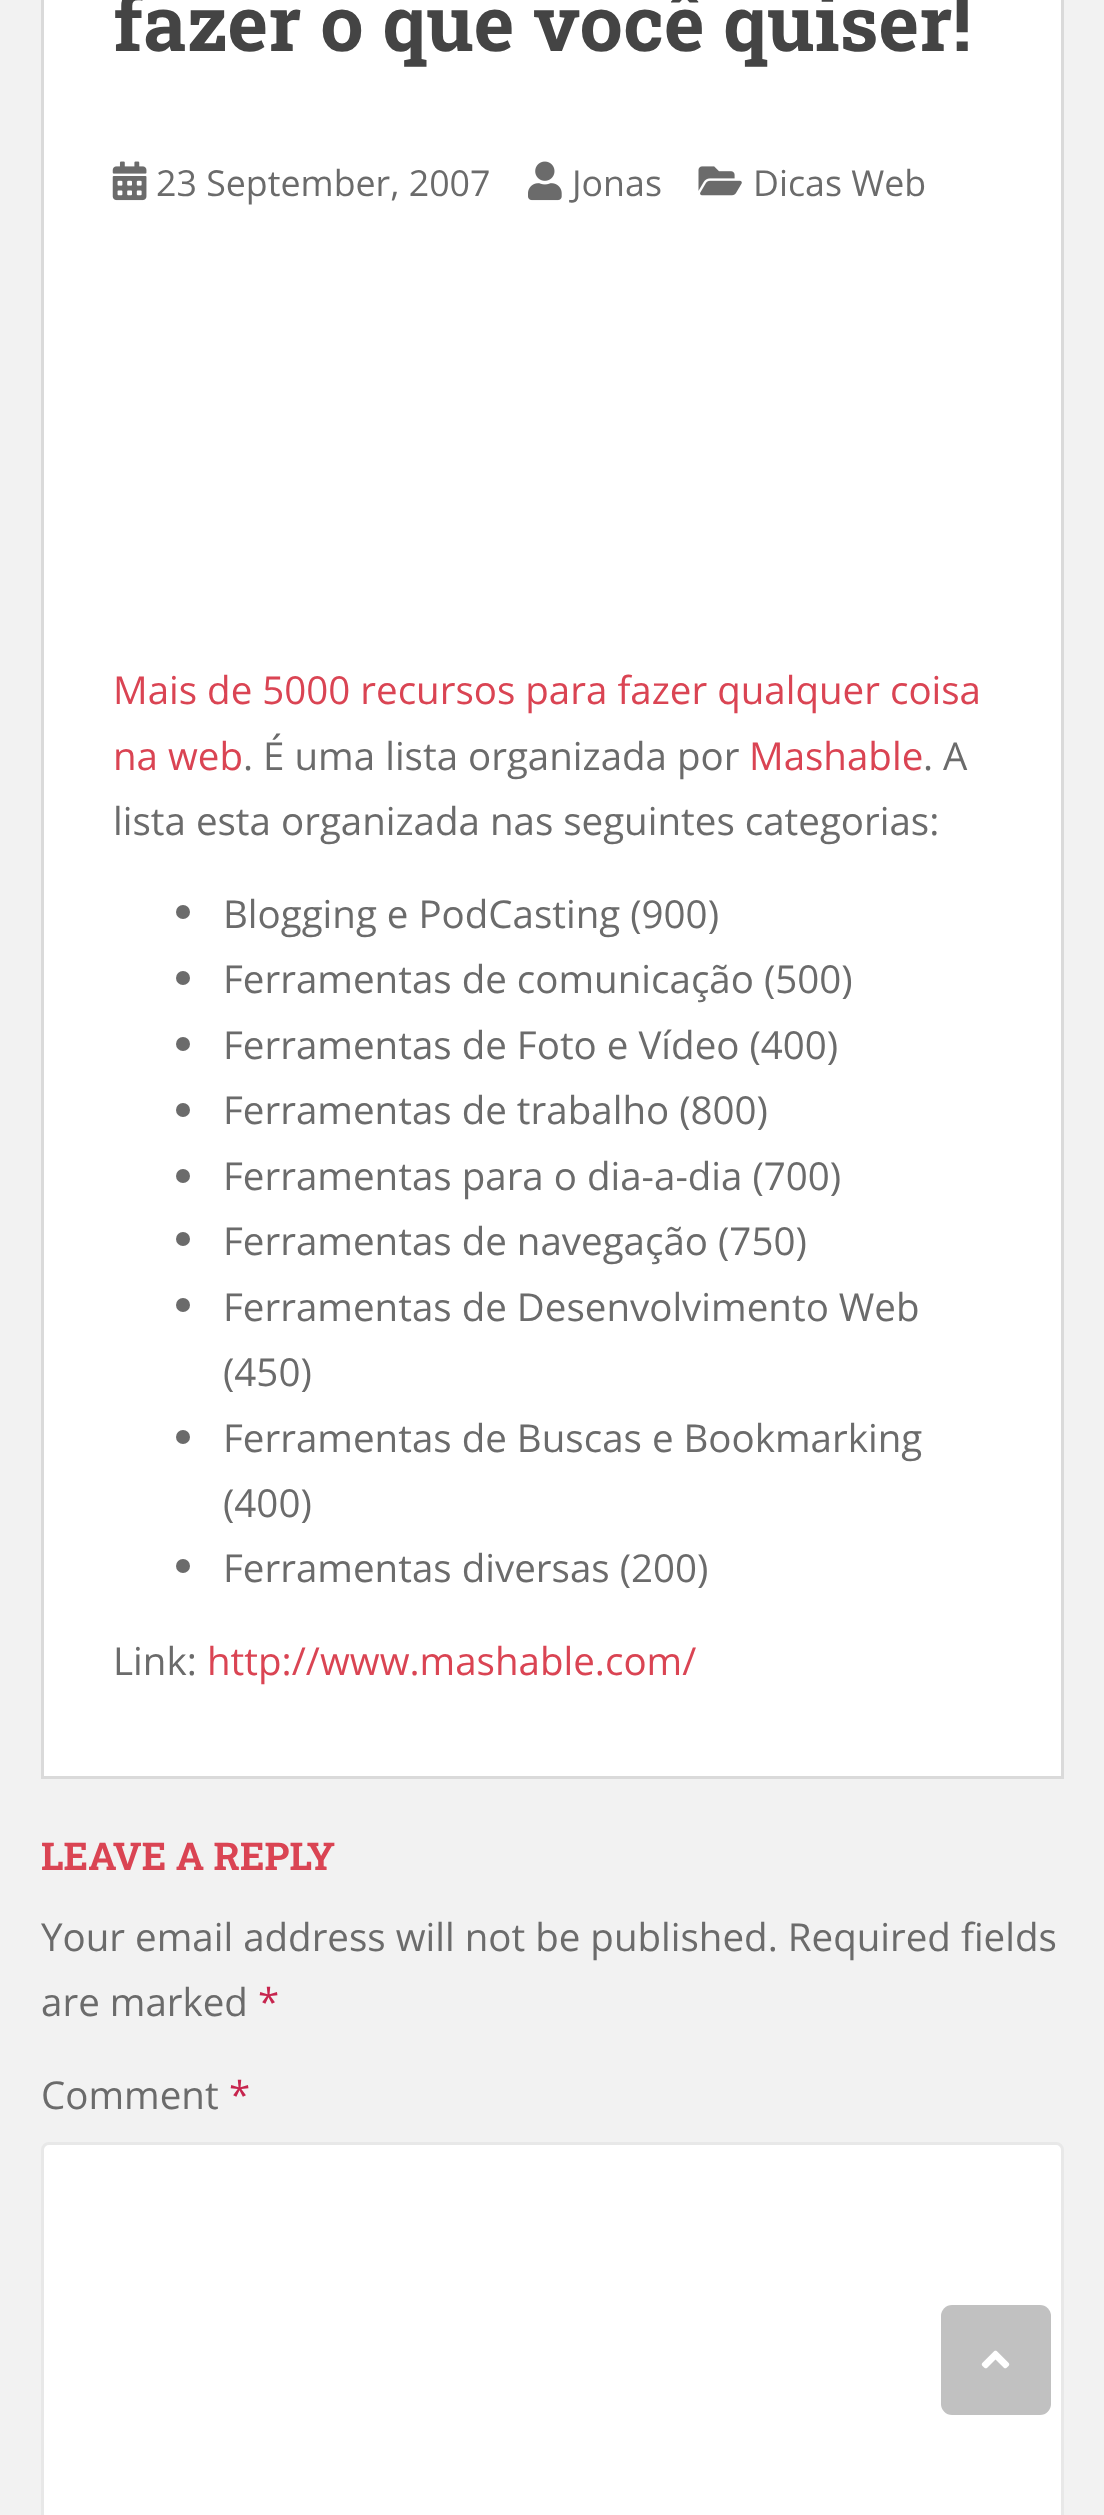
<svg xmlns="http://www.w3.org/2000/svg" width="1104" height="2515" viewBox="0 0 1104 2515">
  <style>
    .t1 { font: bold 77px Roboto Slab; fill: #444; }
    .t2 { font: 35.75px Open Sans; fill: #6b6b6b; }
    .t3 { font: 38.5px Open Sans; fill: #da4453; }
    .t4 { font: 38.5px Open Sans; fill: #6b6b6b; }
    .t5 { font: bold 38.5px Roboto Slab; fill: #da4453; }
    .t6 { font: 38.5px Open Sans; fill: #c7254e; }
  </style>
  <rect width="100%" height="100%" fill="#f2f2f2"/>
  <rect x="42.5" y="-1.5" width="1020" height="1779" fill="#fff" stroke="#dadada" stroke-width="3"/>
  <text x="113" y="51" class="t1">fazer o que você quiser!</text>
  <image x="112" y="161" width="35" height="40" href="images/1.png"/>
  <text x="156" y="196" class="t2">23 September, 2007</text>
  <image x="528" y="161" width="34" height="40" href="images/2.png"/>
  <text x="572" y="196" class="t2">Jonas</text>
  <image x="698" y="166" width="44" height="30" href="images/3.png"/>
  <text x="753" y="196" class="t2">Dicas Web</text>
  <text x="113" y="704" class="t3">Mais de 5000 recursos para fazer qualquer coisa</text>
  <text x="113" y="770" class="t3">na web</text>
  <text x="243" y="770" class="t4">. É uma lista organizada por</text>
  <text x="749" y="770" class="t3">Mashable</text>
  <text x="923" y="770" class="t4">. A</text>
  <text x="113" y="835" class="t4">lista esta organizada nas seguintes categorias:</text>
  <circle cx="183" cy="912" r="7" fill="#6b6b6b"/>
  <text x="223" y="928" class="t4">Blogging e PodCasting (900)</text>
  <circle cx="183" cy="978" r="7" fill="#6b6b6b"/>
  <text x="223" y="993" class="t4">Ferramentas de comunicação (500)</text>
  <circle cx="183" cy="1044" r="7" fill="#6b6b6b"/>
  <text x="223" y="1059" class="t4">Ferramentas de Foto e Vídeo (400)</text>
  <circle cx="183" cy="1110" r="7" fill="#6b6b6b"/>
  <text x="223" y="1124" class="t4">Ferramentas de trabalho (800)</text>
  <circle cx="183" cy="1176" r="7" fill="#6b6b6b"/>
  <text x="223" y="1190" class="t4">Ferramentas para o dia-a-dia (700)</text>
  <circle cx="183" cy="1239" r="7" fill="#6b6b6b"/>
  <text x="223" y="1255" class="t4">Ferramentas de navegação (750)</text>
  <circle cx="183" cy="1305" r="7" fill="#6b6b6b"/>
  <text x="223" y="1321" class="t4">Ferramentas de Desenvolvimento Web</text>
  <text x="223" y="1386" class="t4">(450)</text>
  <circle cx="183" cy="1437" r="7" fill="#6b6b6b"/>
  <text x="223" y="1452" class="t4">Ferramentas de Buscas e Bookmarking</text>
  <text x="223" y="1517" class="t4">(400)</text>
  <circle cx="183" cy="1566" r="7" fill="#6b6b6b"/>
  <text x="223" y="1582" class="t4">Ferramentas diversas (200)</text>
  <text x="113" y="1675" class="t4">Link:</text>
  <text x="207" y="1675" class="t3">http://www.mashable.com/</text>
  <text x="41" y="1870" class="t5">LEAVE A REPLY</text>
  <text x="41" y="1951" class="t4">Your email address will not be published. Required fields</text>
  <text x="41" y="2016" class="t4">are marked</text>
  <text x="258" y="2016" class="t6">*</text>
  <text x="41" y="2109" class="t4">Comment</text>
  <text x="229" y="2109" class="t6">*</text>
  <rect x="42.5" y="2143.5" width="1020" height="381" rx="6.5" fill="#fff" stroke="#e8e8e8" stroke-width="3"/>
  <rect x="941" y="2305" width="110" height="110" rx="11" fill="#c1c1c1"/>
  <image x="981" y="2350" width="29" height="19" href="images/4.png"/>
</svg>
